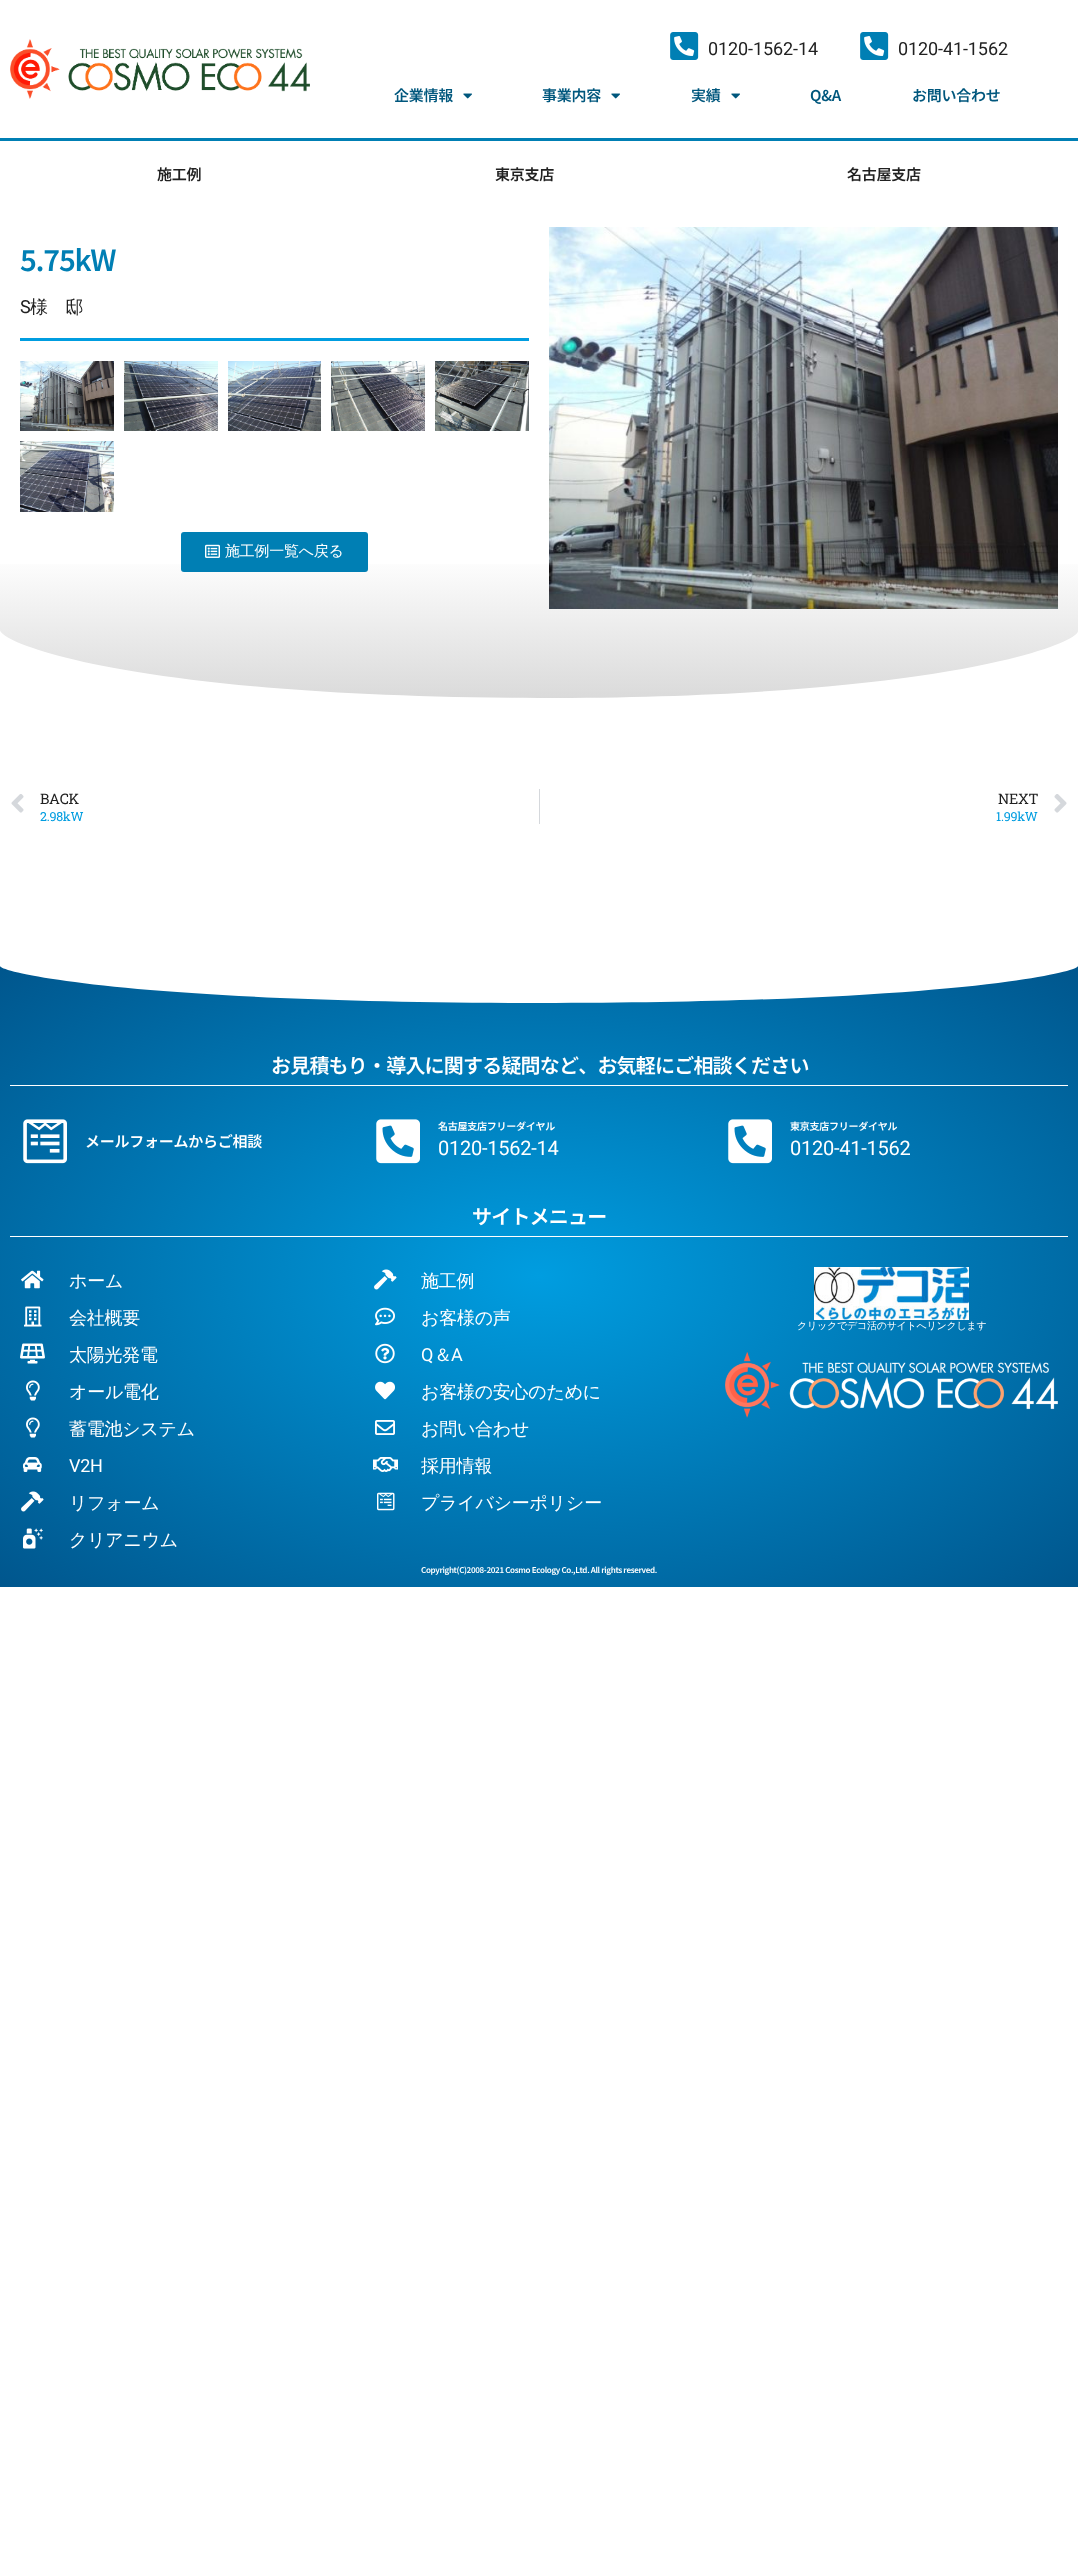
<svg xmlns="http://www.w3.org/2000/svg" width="1078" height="2573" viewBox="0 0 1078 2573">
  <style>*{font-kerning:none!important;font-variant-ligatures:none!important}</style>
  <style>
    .t1 { font: 18px Roboto; letter-spacing: -0.1px; fill: #212121; }
    .t2 { font: 600 15px Noto Sans JP; letter-spacing: -0.25px; fill: #00577d; }
    .t3 { font: 600 15px Noto Sans JP; letter-spacing: -0.25px; fill: #212121; }
    .t4 { font: 600 29px Noto Sans JP; letter-spacing: -1.25px; fill: #007fb4; }
    .t5 { font: 18px Roboto; letter-spacing: -0.25px; fill: #212121; }
    .t6 { font: 500 18px WenQuanYi Zen Hei; letter-spacing: -0.25px; fill: #212121; }
    .t7 { font: 500 15px WenQuanYi Zen Hei; letter-spacing: -0.25px; fill: #fff; }
    .t8 { font: 14.5px Roboto Slab; letter-spacing: -0.25px; fill: #212121; }
    .t9 { font: 12.5px Roboto Slab; letter-spacing: -0.25px; fill: #009de0; }
    .t10 { font: 600 20px Noto Sans JP; letter-spacing: -0.8px; fill: #fff; }
    .t11 { font: 600 15px Noto Sans JP; letter-spacing: -0.25px; fill: #fff; }
    .t12 { font: 600 10px Noto Sans JP; letter-spacing: -0.25px; fill: #fff; }
    .t13 { font: 20px Roboto; letter-spacing: -0.25px; fill: #fff; }
    .t14 { font: 500 18px WenQuanYi Zen Hei; letter-spacing: -0.25px; fill: #fff; }
    .t15 { font: 18px Roboto; letter-spacing: -0.25px; fill: #fff; }
    .t16 { font: 500 10px WenQuanYi Zen Hei; letter-spacing: -0.25px; fill: #fff; }
    .t17 { font: 600 8px Noto Sans JP; letter-spacing: -0.33px; fill: #fff; }
  </style>
  <defs>
    <linearGradient id="g1" gradientUnits="userSpaceOnUse" x1="539" y1="141" x2="539" y2="699"><stop offset="0.74" stop-color="#fff"/><stop offset="1" stop-color="#dadada"/></linearGradient>
    <radialGradient id="g2" gradientUnits="userSpaceOnUse" cx="0" cy="0" r="1" gradientTransform="matrix(762 0 0 440 539 1276)"><stop offset="0" stop-color="#009de0"/><stop offset="1" stop-color="#00568d"/></radialGradient>
  </defs>
  <rect width="100%" height="100%" fill="#fff"/>
  <rect x="0" y="138" width="1078" height="3" fill="#007fb4"/>
  <image x="10" y="39" width="300" height="60" href="images/1.png"/>
  <image x="670" y="32" width="29" height="28" href="images/2.png"/>
  <text x="708" y="55" class="t1">0120-1562-14</text>
  <image x="860" y="32" width="29" height="28" href="images/2.png"/>
  <text x="898" y="55" class="t1">0120-41-1562</text>
  <text x="394" y="101" class="t2">企業情報</text>
  <image x="463" y="93" width="9" height="6" href="images/3.png"/>
  <text x="542" y="101" class="t2">事業内容</text>
  <image x="611" y="93" width="9" height="6" href="images/3.png"/>
  <text x="691" y="101" class="t2">実績</text>
  <image x="731" y="93" width="9" height="6" href="images/3.png"/>
  <text x="810" y="101" class="t2">Q&amp;A</text>
  <text x="912" y="101" class="t2">お問い合わせ</text>
  <rect x="0" y="564" width="1078" height="134" fill="url(#g1)"/>
  <text x="157" y="180" class="t3">施工例</text>
  <text x="495" y="180" class="t3">東京支店</text>
  <text x="847" y="180" class="t3">名古屋支店</text>
  <text x="20" y="271" class="t4">5.75kW</text>
  <rect x="20" y="338" width="509" height="3" fill="#009de0"/>
  <text x="20" y="313" class="t5">S</text>
  <text x="30" y="313" class="t6">様　邸</text>
  <image x="20" y="361" width="94" height="70" href="images/4.png"/>
  <image x="124" y="361" width="94" height="70" href="images/5.png"/>
  <image x="228" y="361" width="93" height="70" href="images/6.png"/>
  <image x="331" y="361" width="94" height="70" href="images/7.png"/>
  <image x="435" y="361" width="94" height="70" href="images/8.png"/>
  <image x="20" y="441" width="94" height="71" href="images/9.png"/>
  <rect x="181" y="532" width="187" height="40" rx="3" fill="#007fb4"/>
  <image x="205" y="544" width="15" height="14" href="images/10.png"/>
  <text x="225" y="556" class="t7">施工例一覧へ戻る</text>
  <image x="549" y="227" width="509" height="382" href="images/11.png"/>
  <path d="M539 698C137 697 1 644 0 630V700H1078V631C1078 644 941 698 539 698Z" fill="#fff"/>
  <image x="11" y="794" width="13" height="19" href="images/12.png"/>
  <text x="40" y="804" class="t8">BACK</text>
  <text x="40" y="821" class="t9">2.98kW</text>
  <rect x="539" y="789" width="1" height="35" fill="#d5d8dc"/>
  <text x="998" y="804" class="t8">NEXT</text>
  <text x="996" y="821" class="t9">1.99kW</text>
  <image x="1054" y="794" width="13" height="19" href="images/13.png"/>
  <rect x="0" y="966" width="1078" height="621" fill="url(#g2)"/>
  <path d="M1078 966V964H0V966C1 973 137 1003 539 1003C941 1003 1078 973 1078 966Z" fill="#fff"/>
  <rect x="10" y="1085" width="1058" height="1" fill="#fff"/>
  <text x="271" y="1073" class="t10">お見積もり・導入に関する疑問など、お気軽にご相談ください</text>
  <image x="23" y="1119" width="44" height="45" href="images/14.png"/>
  <text x="85" y="1147" class="t11">メールフォームからご相談</text>
  <image x="376" y="1119" width="44" height="45" href="images/15.png"/>
  <text x="438" y="1130" class="t12">名古屋支店フリーダイヤル</text>
  <text x="438" y="1155" class="t13">0120-1562-14</text>
  <image x="728" y="1119" width="44" height="45" href="images/16.png"/>
  <text x="790" y="1130" class="t12">東京支店フリーダイヤル</text>
  <text x="790" y="1155" class="t13">0120-41-1562</text>
  <rect x="10" y="1236" width="1058" height="1" fill="#fff"/>
  <text x="472" y="1224" class="t10">サイトメニュー</text>
  <image x="21" y="1270" width="23" height="19" href="images/17.png"/>
  <text x="69" y="1287" class="t14">ホーム</text>
  <image x="24" y="1306" width="18" height="21" href="images/18.png"/>
  <text x="69" y="1324" class="t14">会社概要</text>
  <image x="20" y="1343" width="25" height="21" href="images/19.png"/>
  <text x="69" y="1361" class="t14">太陽光発電</text>
  <image x="26" y="1380" width="14" height="21" href="images/20.png"/>
  <text x="69" y="1398" class="t14">オール電化</text>
  <image x="26" y="1417" width="14" height="21" href="images/21.png"/>
  <text x="69" y="1435" class="t14">蓄電池システム</text>
  <image x="23" y="1457" width="19" height="15" href="images/22.png"/>
  <text x="69" y="1472" class="t15">V2H</text>
  <image x="21" y="1491" width="23" height="21" href="images/23.png"/>
  <text x="69" y="1509" class="t14">リフォーム</text>
  <image x="23" y="1528" width="20" height="21" href="images/24.png"/>
  <text x="69" y="1546" class="t14">クリアニウム</text>
  <image x="374" y="1269" width="23" height="21" href="images/25.png"/>
  <text x="421" y="1287" class="t14">施工例</text>
  <image x="375" y="1307" width="20" height="19" href="images/26.png"/>
  <text x="421" y="1324" class="t14">お客様の声</text>
  <image x="375" y="1343" width="20" height="21" href="images/27.png"/>
  <text x="421" y="1361" class="t15">Q</text>
  <text x="434" y="1361" class="t14">＆</text>
  <text x="451" y="1361" class="t15">A</text>
  <image x="375" y="1381" width="20" height="19" href="images/28.png"/>
  <text x="421" y="1398" class="t14">お客様の安心のために</text>
  <image x="375" y="1420" width="20" height="15" href="images/29.png"/>
  <text x="421" y="1435" class="t14">お問い合わせ</text>
  <image x="373" y="1457" width="25" height="15" href="images/30.png"/>
  <text x="421" y="1472" class="t14">採用情報</text>
  <image x="377" y="1492" width="18" height="19" href="images/31.png"/>
  <text x="421" y="1509" class="t14">プライバシーポリシー</text>
  <image x="814" y="1267" width="155" height="53" href="images/32.png"/>
  <text x="797" y="1329" class="t16">クリックでデコ活のサイトへリンクします</text>
  <image x="725" y="1352" width="333" height="66" href="images/33.png"/>
  <text x="421" y="1573" class="t17">Copyright(C)2008-2021 Cosmo Ecology Co.,Ltd. All rights reserved.</text>
</svg>
